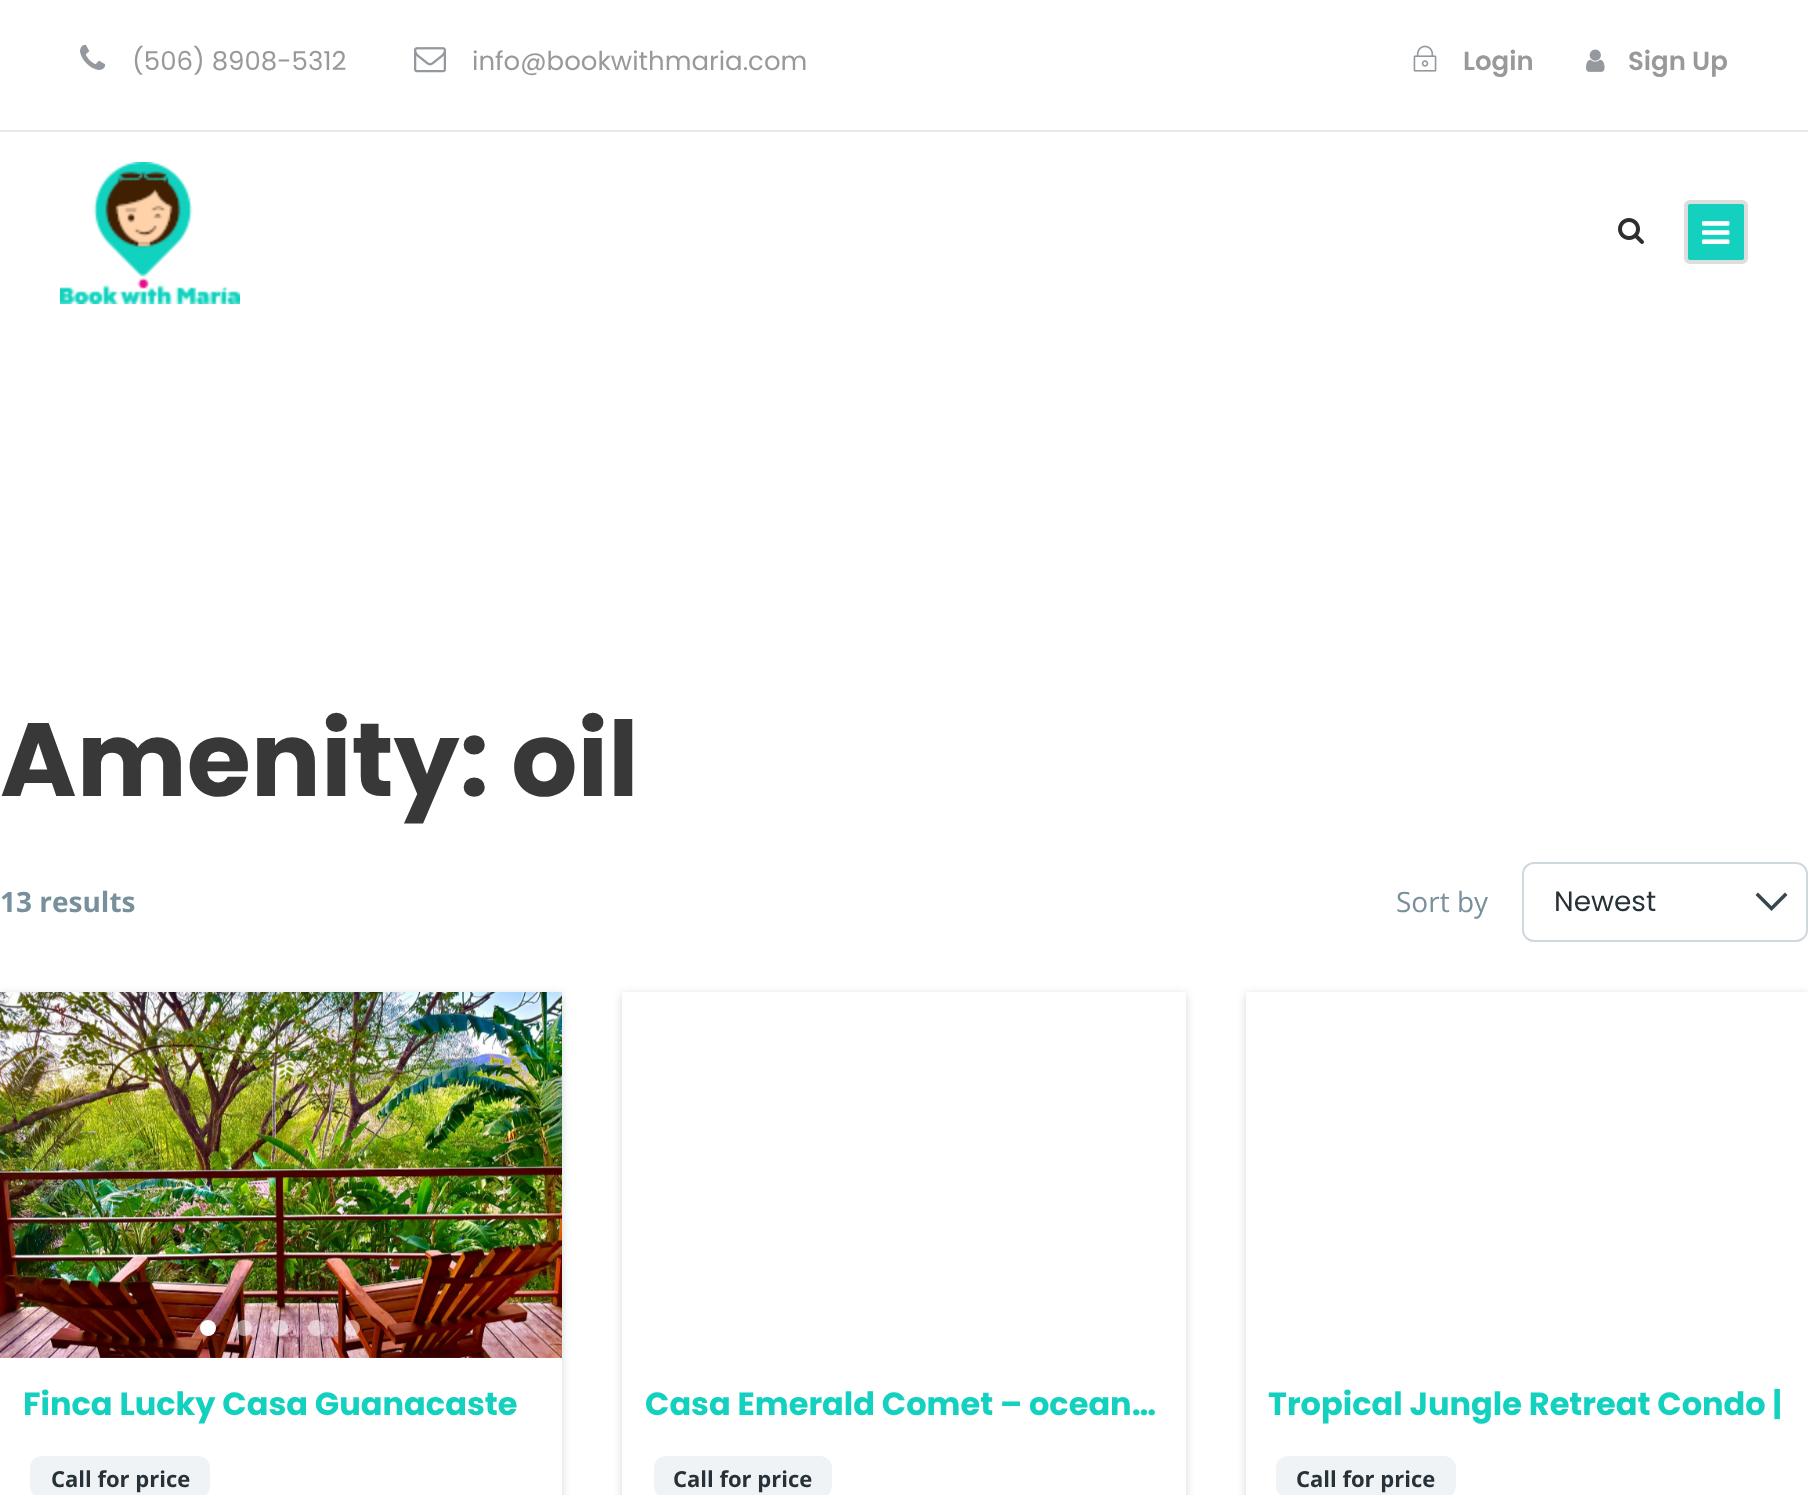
<svg xmlns="http://www.w3.org/2000/svg" width="1808" height="1495" viewBox="0 0 1808 1495">
  <style>
    .t1 { font: 26px Poppins; fill: #999; }
    .t2 { font: 600 26px Poppins; fill: #999; }
    .t3 { font: bold 104px Poppins; fill: #383838; }
    .t4 { font: bold 28px Open Sans; fill: #78909c; }
    .t5 { font: 28px Open Sans; fill: #78909c; }
    .t6 { font: 28px Poppins; fill: #263238; }
    .t7 { font: bold 32px Poppins; fill: #14d0bf; }
    .t8 { font: bold 22px Open Sans; fill: #263238; }
  </style>
  <defs>
    <clipPath id="clip1"><path d="M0 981H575V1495H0ZM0 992H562V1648H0Z" clip-rule="evenodd"/></clipPath>
    <clipPath id="clip2"><path d="M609 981H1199V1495H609ZM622 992H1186V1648H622Z" clip-rule="evenodd"/></clipPath>
    <clipPath id="clip3"><path d="M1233 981H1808V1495H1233ZM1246 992H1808V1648H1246Z" clip-rule="evenodd"/></clipPath>
  </defs>
  <rect width="100%" height="100%" fill="#fff"/>
  <rect x="0" y="130" width="1808" height="2" fill="#e9e9e9"/>
  <image x="80" y="44" width="26" height="26" href="images/1.png"/>
  <text x="132" y="70" class="t1">(506) 8908-5312</text>
  <image x="414" y="47" width="32" height="26" href="images/2.png"/>
  <text x="472" y="70" class="t1">info@bookwithmaria.com</text>
  <image x="1413" y="45" width="24" height="27" href="images/3.png"/>
  <text x="1463" y="70" class="t2">Login</text>
  <image x="1586" y="49" width="19" height="23" href="images/4.png"/>
  <text x="1628" y="70" class="t2">Sign Up</text>
  <image x="60" y="162" width="180" height="142" href="images/5.png"/>
  <image x="1618" y="218" width="26" height="26" href="images/6.png"/>
  <rect x="1686" y="202" width="60" height="60" rx="4" fill="#14d0bf" stroke="#ddd" stroke-width="4"/>
  <image x="1702" y="221" width="28" height="23" href="images/7.png"/>
  <text x="0" y="796" class="t3">Amenity: oil</text>
  <text x="0" y="912" class="t4">13 results</text>
  <text x="1396" y="912" class="t5">Sort by</text>
  <path d="M1785 892.5L1787.5 895L1771.5 911L1755.5 895L1758 892.5L1771.5 906Z" fill="#37474f" fill-rule="evenodd"/>
  <rect x="1523" y="863" width="284" height="78" rx="11" fill="none" stroke="#cfd8dc" stroke-width="2"/>
  <text x="1554" y="911" class="t6">Newest</text>
  <g clip-path="url(#clip1)">
    <rect x="0" y="994" width="562" height="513" fill="#26323833" filter="blur(4px)"/>
  </g>
  <image x="0" y="992" width="562" height="366" href="images/8.png"/>
  <circle cx="208" cy="1328" r="8" fill="#fff"/>
  <circle cx="244" cy="1328" r="8" fill="#ffffff80"/>
  <circle cx="280" cy="1328" r="8" fill="#ffffff80"/>
  <circle cx="316" cy="1328" r="8" fill="#ffffff80"/>
  <circle cx="352" cy="1328" r="8" fill="#ffffff80"/>
  <text x="23" y="1415" class="t7">Finca Lucky Casa Guanacaste</text>
  <rect x="30" y="1456" width="180" height="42" rx="12" fill="#eff3f5"/>
  <text x="51" y="1487" class="t8">Call for price</text>
  <g clip-path="url(#clip2)">
    <rect x="622" y="994" width="564" height="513" fill="#26323833" filter="blur(4px)"/>
  </g>
  <text x="645" y="1415" class="t7">Casa Emerald Comet – ocean…</text>
  <rect x="654" y="1456" width="178" height="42" rx="12" fill="#eff3f5"/>
  <text x="673" y="1487" class="t8">Call for price</text>
  <g clip-path="url(#clip3)">
    <rect x="1246" y="994" width="562" height="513" fill="#26323833" filter="blur(4px)"/>
  </g>
  <text x="1268" y="1415" class="t7">Tropical Jungle Retreat Condo |</text>
  <rect x="1276" y="1456" width="180" height="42" rx="12" fill="#eff3f5"/>
  <text x="1296" y="1487" class="t8">Call for price</text>
</svg>
